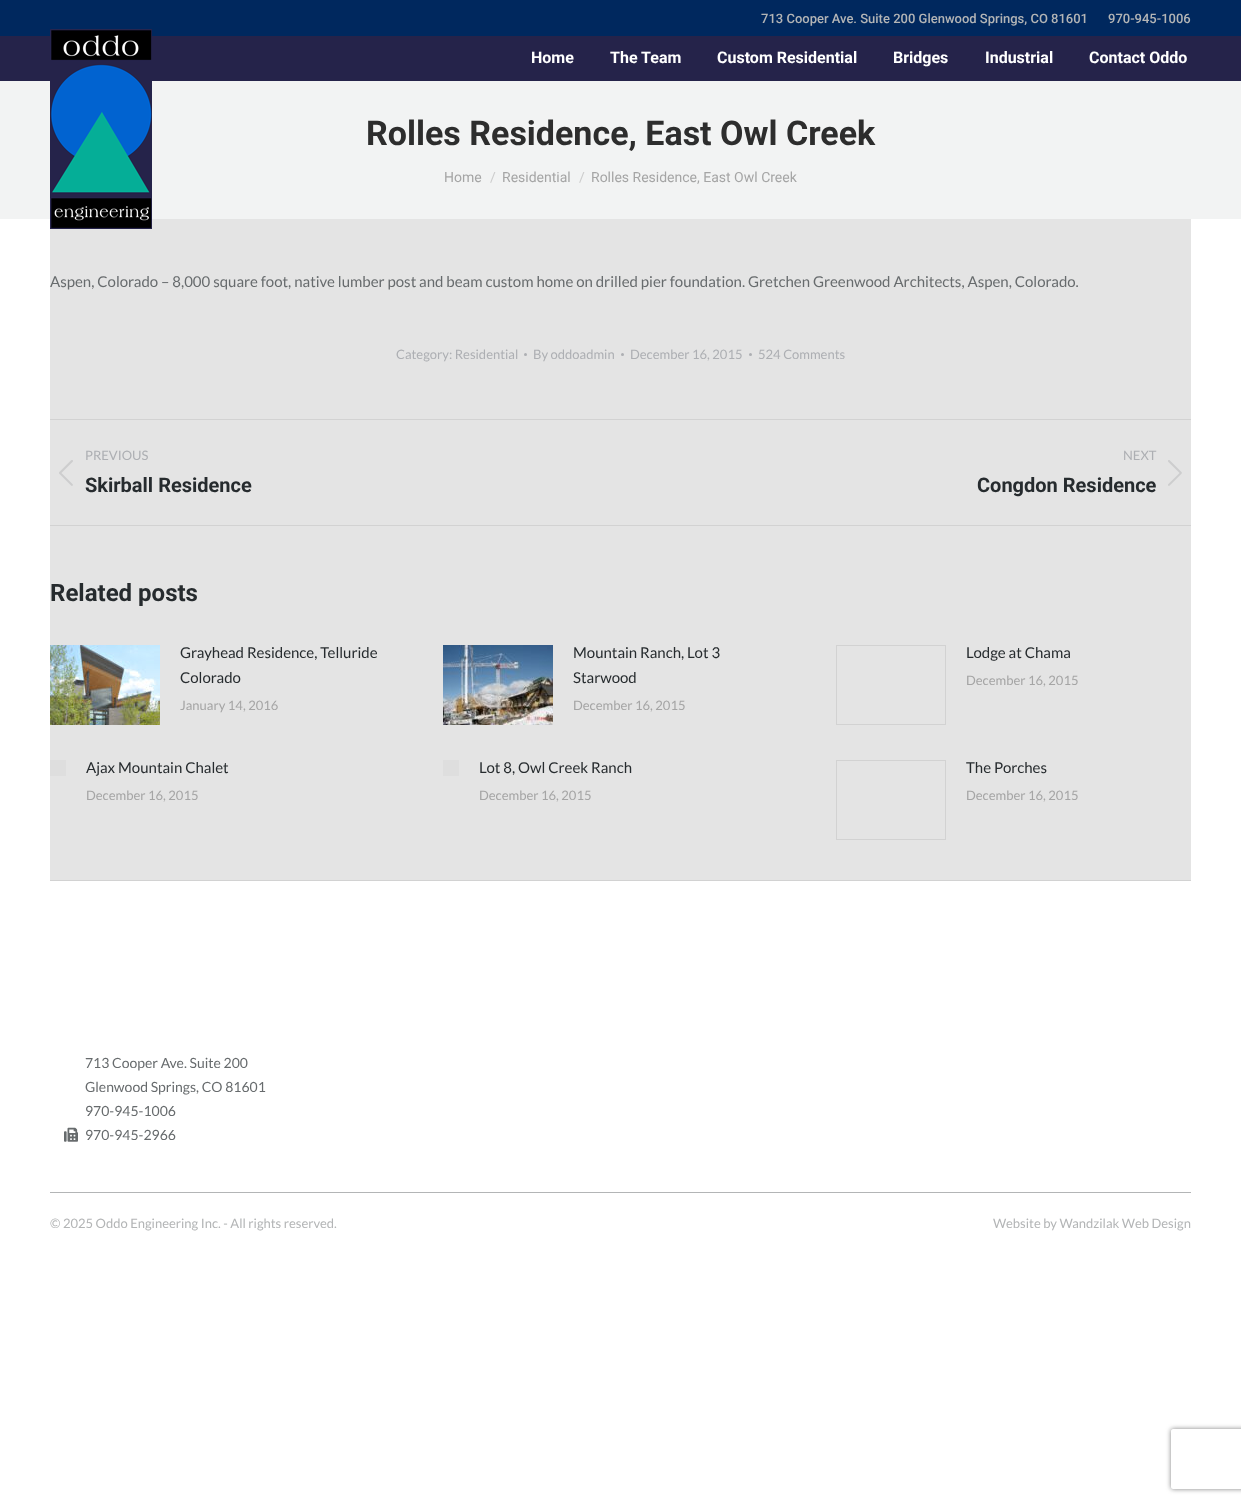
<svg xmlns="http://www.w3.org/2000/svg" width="1241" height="1503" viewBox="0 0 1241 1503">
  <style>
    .t1 { font: 500 13px Roboto; fill: #b3b5b6; }
    .t2 { font: bold 16px Roboto; fill: #fff; }
    .t3 { font: bold 34px Roboto; fill: #2d2d2d; }
    .t4 { font: 14px Roboto; fill: #a5a5a5; }
    .t5 { font: 14px Roboto; fill: #ccc; }
    .t6 { font: 15px Lato; fill: #676b6d; }
    .t7 { font: 13px Lato; fill: #adafb3; }
    .t8 { font: bold 20px Roboto; fill: #262b2e; }
    .t9 { font: bold 24px Roboto; fill: #262b2e; }
    .t10 { font: 15px Lato; fill: #262b2e; }
    .t11 { font: 13px Lato; fill: #a5a5a5; }
    .t12 { font: 14px Lato; fill: #676b6d; }
    .t13 { font: 13px Lato; fill: #b3b5b6; }
  </style>
  <defs>
    <clipPath id="clip1"><path d="M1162 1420H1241V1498H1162ZM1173 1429H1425C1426 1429 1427 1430 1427 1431V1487C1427 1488 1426 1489 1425 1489H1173C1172 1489 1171 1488 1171 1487V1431C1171 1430 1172 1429 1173 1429Z" clip-rule="evenodd"/></clipPath>
  </defs>
  <rect width="100%" height="100%" fill="#fff"/>
  <rect x="0" y="36" width="1241" height="45" fill="#25234a"/>
  <rect x="0" y="0" width="1241" height="36" fill="#00285e"/>
  <text x="761" y="23" class="t1">713 Cooper Ave. Suite 200 Glenwood Springs, CO 81601</text>
  <text x="1108" y="23" class="t1">970-945-1006</text>
  <rect x="0" y="81" width="1241" height="138" fill="#f2f3f3"/>
  <rect x="50" y="219" width="1141" height="661" fill="#e4e4e4"/>
  <image x="50" y="29" width="102" height="200" href="images/1.png"/>
  <text x="531" y="63" class="t2">Home</text>
  <text x="610" y="63" class="t2">The Team</text>
  <text x="717" y="63" class="t2">Custom Residential</text>
  <text x="893" y="63" class="t2">Bridges</text>
  <text x="985" y="63" class="t2">Industrial</text>
  <text x="1089" y="63" class="t2">Contact Oddo</text>
  <text x="366" y="145" class="t3">Rolles Residence, East Owl Creek</text>
  <text x="444" y="182" class="t4">Home</text>
  <text x="490" y="182" class="t5">/</text>
  <text x="502" y="182" class="t4">Residential</text>
  <text x="579" y="182" class="t5">/</text>
  <text x="591" y="182" class="t4">Rolles Residence, East Owl Creek</text>
  <text x="50" y="287" class="t6">Aspen, Colorado – 8,000 square foot, native lumber post and beam custom home on drilled pier foundation. Gretchen Greenwood Architects, Aspen, Colorado.</text>
  <text x="396" y="359" class="t7">Category: Residential</text>
  <circle cx="525.5" cy="354.5" r="1.5" fill="#adafb3"/>
  <text x="533" y="359" class="t7">By oddoadmin</text>
  <circle cx="622.5" cy="354.5" r="1.5" fill="#adafb3"/>
  <text x="630" y="359" class="t7">December 16, 2015</text>
  <circle cx="750.5" cy="354.5" r="1.5" fill="#adafb3"/>
  <text x="758" y="359" class="t7">524 Comments</text>
  <rect x="50" y="419" width="1141" height="1" fill="#d2d2d2"/>
  <rect x="50" y="525" width="1141" height="1" fill="#d2d2d2"/>
  <text x="85" y="460" class="t7">PREVIOUS</text>
  <image x="59" y="460" width="14" height="26" href="images/2.png"/>
  <text x="85" y="492" class="t8">Skirball Residence</text>
  <text x="1123" y="460" class="t7">NEXT</text>
  <text x="977" y="492" class="t8">Congdon Residence</text>
  <image x="1168" y="460" width="14" height="26" href="images/3.png"/>
  <rect x="50" y="880" width="1141" height="1" fill="#d2d2d2"/>
  <text x="50" y="601" class="t9">Related posts</text>
  <image x="50" y="645" width="110" height="80" href="images/4.png"/>
  <text x="180" y="658" class="t10">Grayhead Residence, Telluride</text>
  <text x="180" y="683" class="t10">Colorado</text>
  <text x="180" y="710" class="t11">January 14, 2016</text>
  <image x="443" y="645" width="110" height="80" href="images/5.png"/>
  <text x="573" y="658" class="t10">Mountain Ranch, Lot 3</text>
  <text x="573" y="683" class="t10">Starwood</text>
  <text x="573" y="710" class="t11">December 16, 2015</text>
  <rect x="836.5" y="645.5" width="109" height="79" fill="none" stroke="#d2d2d2"/>
  <text x="966" y="658" class="t10">Lodge at Chama</text>
  <text x="966" y="685" class="t11">December 16, 2015</text>
  <rect x="50" y="760" width="16" height="16" fill="#dedede"/>
  <text x="86" y="773" class="t10">Ajax Mountain Chalet</text>
  <text x="86" y="800" class="t11">December 16, 2015</text>
  <rect x="443" y="760" width="16" height="16" fill="#dedede"/>
  <text x="479" y="773" class="t10">Lot 8, Owl Creek Ranch</text>
  <text x="479" y="800" class="t11">December 16, 2015</text>
  <rect x="836.5" y="760.5" width="109" height="79" fill="none" stroke="#d2d2d2"/>
  <text x="966" y="773" class="t10">The Porches</text>
  <text x="966" y="800" class="t11">December 16, 2015</text>
  <text x="85" y="1068" class="t12">713 Cooper Ave. Suite 200</text>
  <text x="85" y="1092" class="t12">Glenwood Springs, CO 81601</text>
  <text x="85" y="1116" class="t12">970-945-1006</text>
  <image x="64" y="1127" width="14" height="15" href="images/6.png"/>
  <text x="85" y="1140" class="t12">970-945-2966</text>
  <rect x="50" y="1192" width="1141" height="1" fill="#b3b5b6"/>
  <text x="50" y="1228" class="t13">© 2025 Oddo Engineering Inc. - All rights reserved.</text>
  <text x="993" y="1228" class="t13">Website by Wandzilak Web Design</text>
  <g clip-path="url(#clip1)">
    <rect x="1171" y="1429" width="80" height="60" rx="2" fill="#808080" filter="blur(2.5px)"/>
  </g>
</svg>
